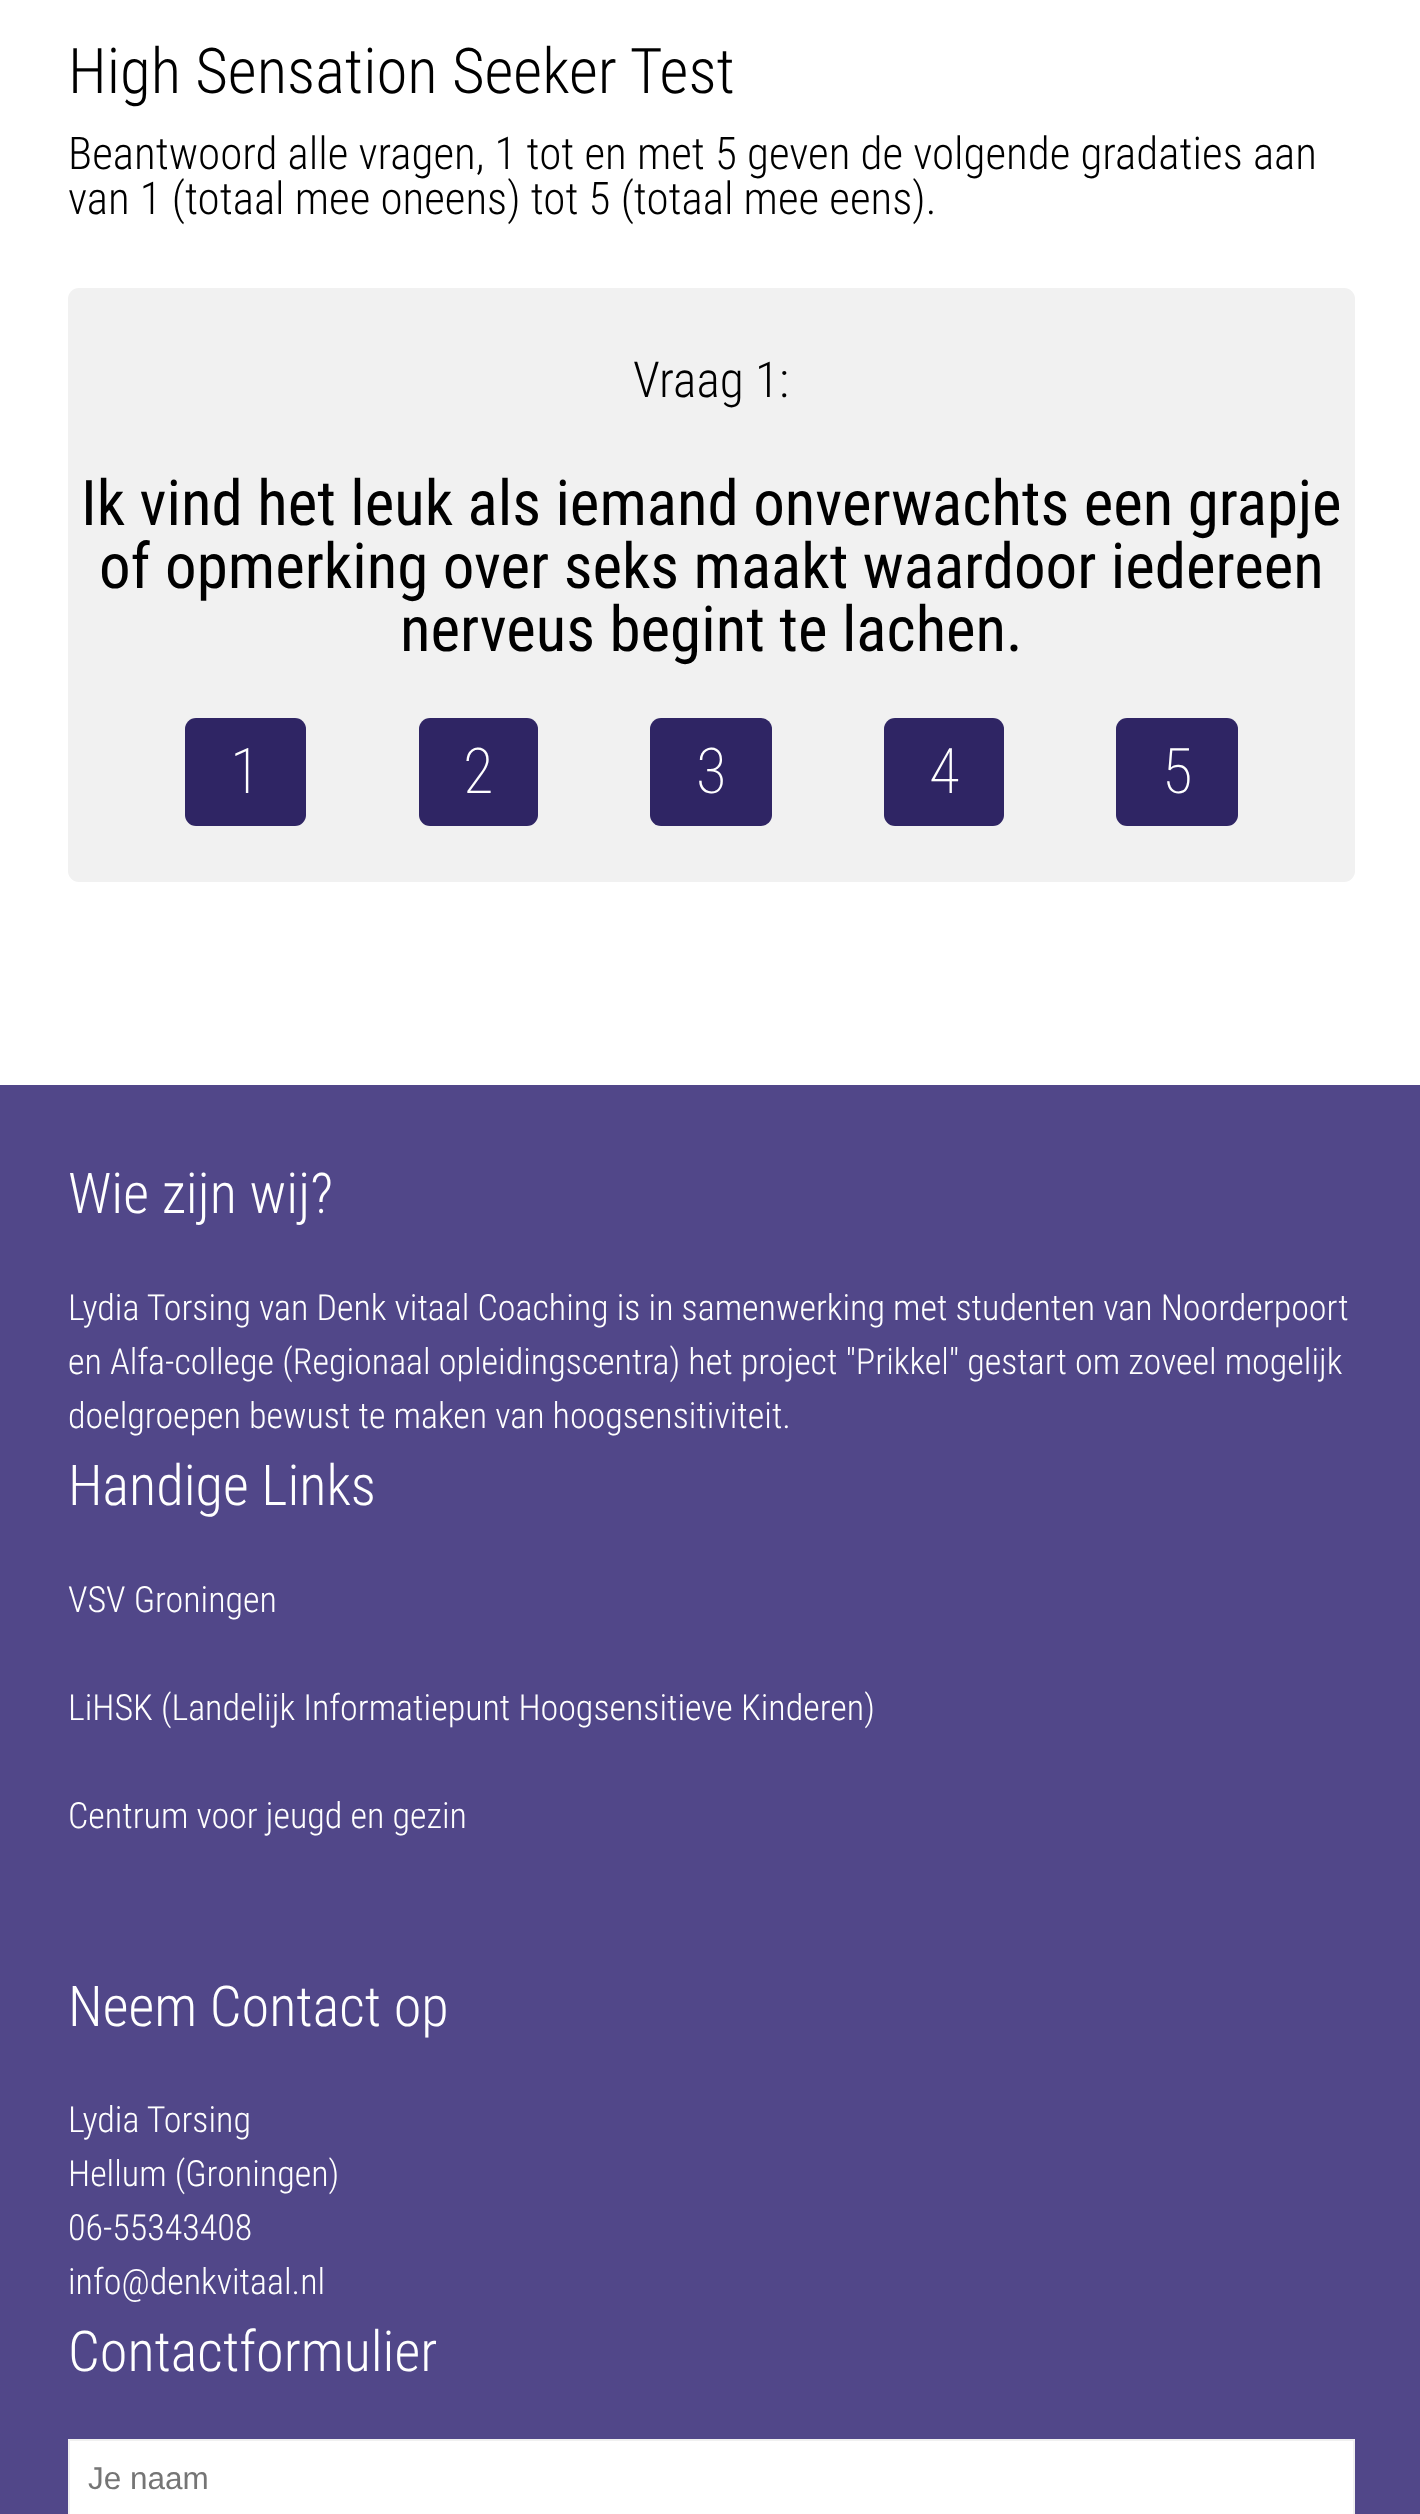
<svg xmlns="http://www.w3.org/2000/svg" width="1420" height="2514" viewBox="0 0 1420 2514">
  <style>
    .t1 { font: 300 63px Roboto Condensed; fill: #000; }
    .t2 { font: 300 45px Roboto Condensed; fill: #000; }
    .t3 { font: 300 49.5px Roboto Condensed; fill: #000; }
    .t4 { font: 63px Roboto Condensed; fill: #000; }
    .t5 { font: 200 63px Roboto Condensed; fill: #fff; }
    .t6 { font: 300 56.25px Roboto Condensed; fill: #fff; }
    .t7 { font: 300 36px Roboto Condensed; fill: #fff; }
    .t8 { font: 31.5px Liberation Sans; fill: #757575; }
  </style>
  <rect width="100%" height="100%" fill="#fff"/>
  <text x="68" y="93" class="t1">High Sensation Seeker Test</text>
  <text x="68" y="169" class="t2">Beantwoord alle vragen, 1 tot en met 5 geven de volgende gradaties aan</text>
  <text x="68" y="214" class="t2">van 1 (totaal mee oneens) tot 5 (totaal mee eens).</text>
  <rect x="68" y="288" width="1287" height="594" rx="11" fill="#f1f1f1"/>
  <text x="633" y="397" class="t3">Vraag 1:</text>
  <text x="81" y="525" class="t4">Ik vind het leuk als iemand onverwachts een grapje</text>
  <text x="99" y="588" class="t4">of opmerking over seks maakt waardoor iedereen</text>
  <text x="400" y="651" class="t4">nerveus begint te lachen.</text>
  <rect x="185" y="718" width="121" height="108" rx="11" fill="#2f2564"/>
  <text x="230" y="793" class="t5">1</text>
  <rect x="419" y="718" width="119" height="108" rx="11" fill="#2f2564"/>
  <text x="463" y="793" class="t5">2</text>
  <rect x="650" y="718" width="122" height="108" rx="11" fill="#2f2564"/>
  <text x="696" y="793" class="t5">3</text>
  <rect x="884" y="718" width="120" height="108" rx="11" fill="#2f2564"/>
  <text x="929" y="793" class="t5">4</text>
  <rect x="1116" y="718" width="122" height="108" rx="11" fill="#2f2564"/>
  <text x="1162" y="793" class="t5">5</text>
  <rect x="0" y="1085" width="1420" height="1429" fill="#514789"/>
  <text x="68" y="1213" class="t6">Wie zijn wij?</text>
  <text x="68" y="1320" class="t7">Lydia Torsing van Denk vitaal Coaching is in samenwerking met studenten van Noorderpoort</text>
  <text x="68" y="1374" class="t7">en Alfa-college (Regionaal opleidingscentra) het project "Prikkel" gestart om zoveel mogelijk</text>
  <text x="68" y="1428" class="t7">doelgroepen bewust te maken van hoogsensitiviteit.</text>
  <text x="68" y="1505" class="t6">Handige Links</text>
  <text x="68" y="1612" class="t7">VSV Groningen</text>
  <text x="68" y="1720" class="t7">LiHSK (Landelijk Informatiepunt Hoogsensitieve Kinderen)</text>
  <text x="68" y="1828" class="t7">Centrum voor jeugd en gezin</text>
  <text x="68" y="2026" class="t6">Neem Contact op</text>
  <text x="68" y="2132" class="t7">Lydia Torsing</text>
  <text x="68" y="2186" class="t7">Hellum (Groningen)</text>
  <text x="68" y="2240" class="t7">06-55343408</text>
  <text x="68" y="2294" class="t7">info@denkvitaal.nl</text>
  <text x="68" y="2371" class="t6">Contactformulier</text>
  <rect x="69" y="2440" width="1285" height="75" fill="#fff" stroke="#f0f0f0" stroke-width="2"/>
  <text x="88" y="2489" class="t8">Je naam</text>
</svg>
